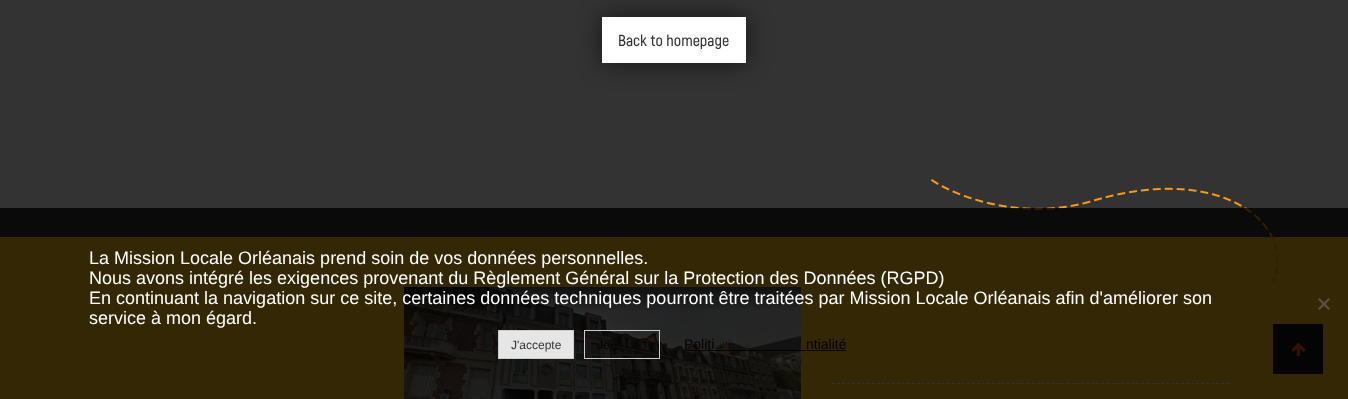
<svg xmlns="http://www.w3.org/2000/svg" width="1348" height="399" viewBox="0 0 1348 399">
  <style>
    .t1 { font: 600 16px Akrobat; fill: #333; }
    .t2 { font: 18px Liberation Sans; fill: #fff; }
    .t3 { font: 12px Liberation Sans; fill: #333; }
    .t4 { font: 12px Liberation Sans; fill: #030303; }
    .t5 { font: 14px Liberation Sans; fill: #030303; }
  </style>
  <rect width="100%" height="100%" fill="#333"/>
  <rect x="602" y="17" width="144" height="46" fill="#00000099" filter="blur(12.5px)"/>
  <rect x="602" y="17" width="144" height="46" fill="#fff"/>
  <text x="618" y="46" class="t1">Back to homepage</text>
  <rect x="0" y="237" width="1348" height="162" fill="#ffc01c"/>
  <image x="931" y="179" width="348" height="103" href="images/1.png"/>
  <image x="404" y="287" width="397" height="112" href="images/2.png"/>
  <path d="M832 383.5H1229" fill="none" stroke="#fff" stroke-dasharray="3 1.99"/>
  <rect x="1273" y="324" width="50" height="50" fill="#1a171b"/>
  <image x="1291" y="343" width="15" height="14" href="images/3.png"/>
  <rect x="0" y="208" width="1348" height="191" fill="#000000cc"/>
  <text x="89" y="264" class="t2">La Mission Locale Orléanais prend soin de vos données personnelles.</text>
  <text x="89" y="284" class="t2">Nous avons intégré les exigences provenant du Règlement Général sur la Protection des Données (RGPD)</text>
  <text x="89" y="304" class="t2">En continuant la navigation sur ce site, certaines données techniques pourront être traitées par Mission Locale Orléanais afin d'améliorer son</text>
  <text x="89" y="324" class="t2">service à mon égard.</text>
  <path d="M1328.5 298L1330 299.5L1319.5 310L1318 308.5Z" fill="#5a5343"/>
  <path d="M1318 299.5L1319.5 298L1330 308.5L1328.5 310Z" fill="#5a5343"/>
  <rect x="498.5" y="330.5" width="75" height="28" fill="#e6e6e6" stroke="#ccc"/>
  <text x="511" y="349" class="t3">J'accepte</text>
  <rect x="584.5" y="330.5" width="75" height="28" fill="none" stroke="#ccc"/>
  <text x="597" y="349" class="t4">Je</text>
  <text x="684" y="349" class="t5">Politi</text>
  <rect x="684" y="350" width="162" height="1" fill="#000000cc"/>
  <text x="806" y="349" class="t5">ntialité</text>
</svg>
